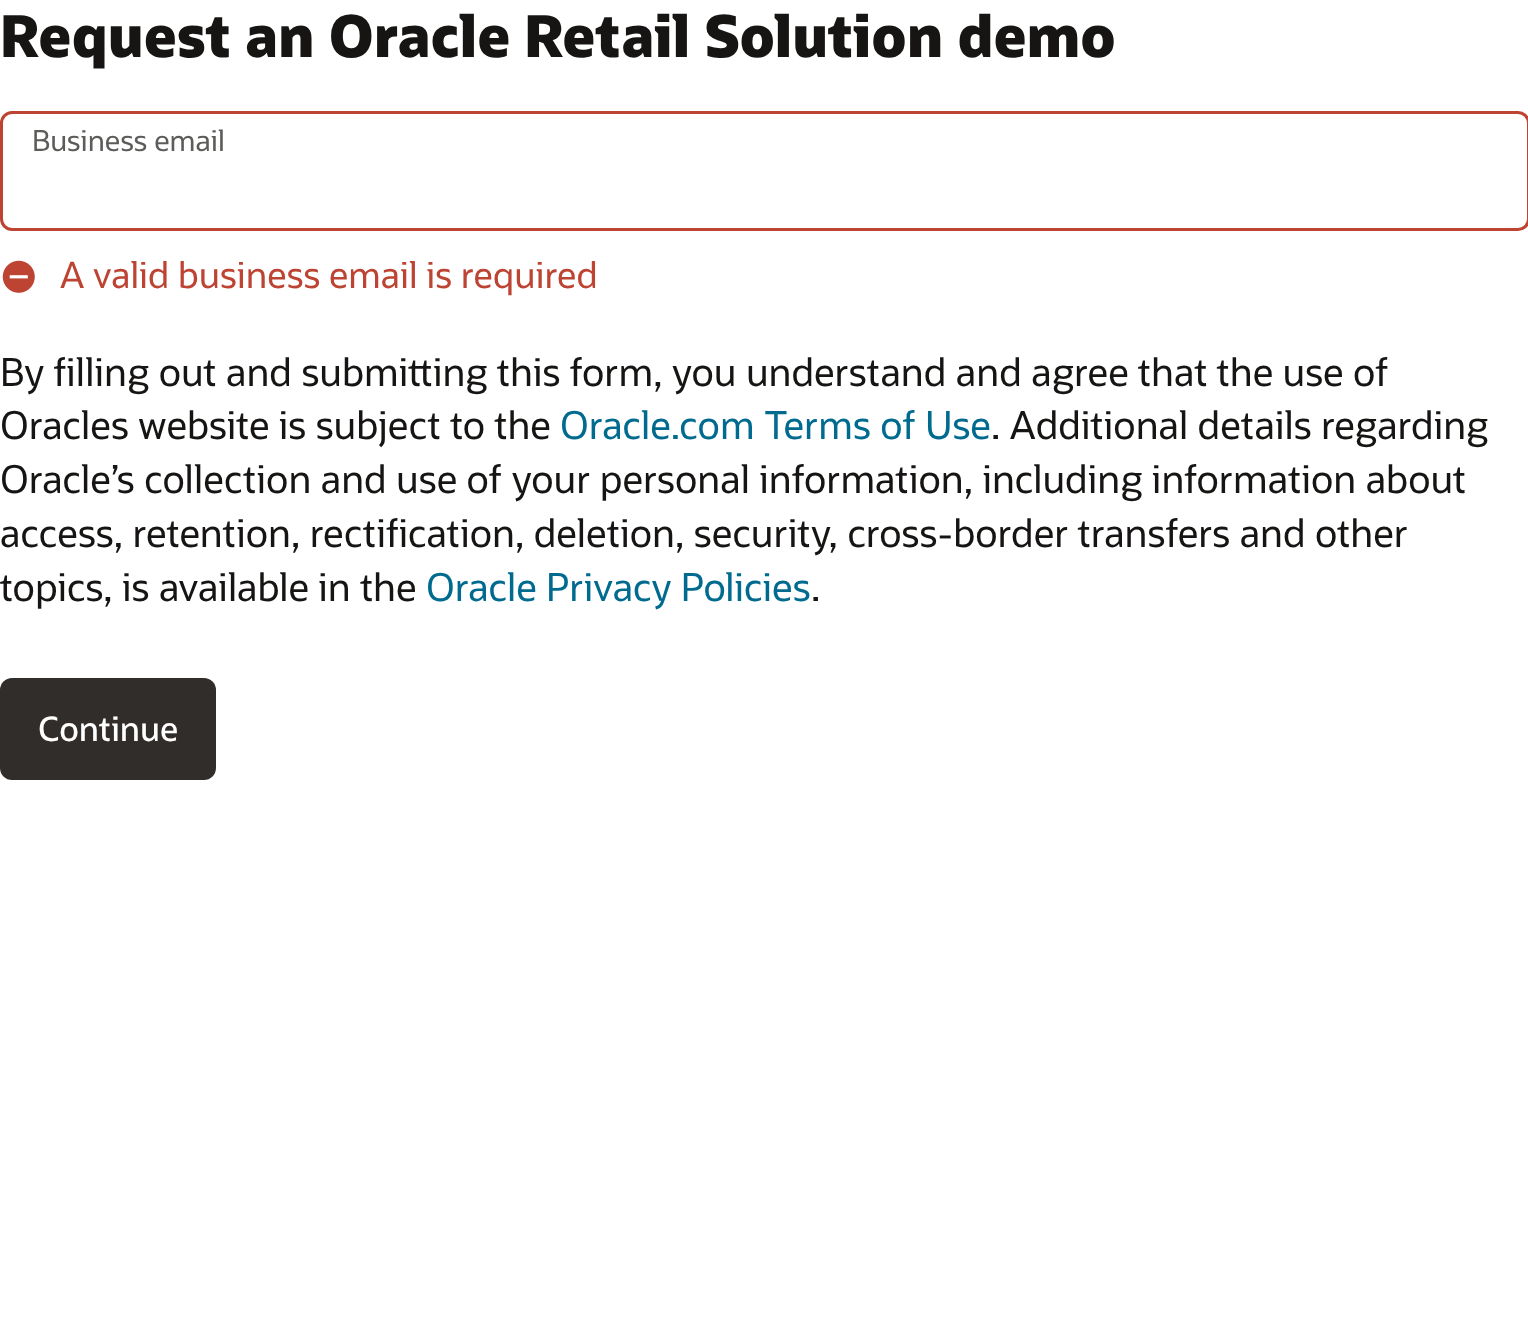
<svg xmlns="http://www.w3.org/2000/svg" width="1528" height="1343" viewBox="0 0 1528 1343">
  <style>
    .t1 { font: 800 57.6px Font; fill: #161513; }
    .t2 { font: 28.75px Font; fill: #5c5c5a; }
    .t3 { font: 36px Font; fill: #bd4332; }
    .t4 { font: 38.4px Font; fill: #161513; }
    .t5 { font: 38.4px Font; fill: #006b8f; }
    .t6 { font: 500 33.5px Font; fill: #fff; }
  </style>
  <rect width="100%" height="100%" fill="#fff"/>
  <text x="0" y="57" class="t1">Request an Oracle Retail Solution demo</text>
  <rect x="1.5" y="112.5" width="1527" height="117" rx="10.5" fill="none" stroke="#bd4332" stroke-width="3"/>
  <text x="32" y="151" class="t2">Business email</text>
  <image x="2" y="260" width="33" height="33" href="images/1.png"/>
  <text x="60" y="288" class="t3">A valid business email is required</text>
  <text x="0" y="386" class="t4">By filling out and submitting this form, you understand and agree that the use of</text>
  <text x="0" y="439" class="t4">Oracles website is subject to the</text>
  <text x="560" y="439" class="t5">Oracle.com Terms of Use</text>
  <text x="991" y="439" class="t4">. Additional details regarding</text>
  <text x="0" y="493" class="t4">Oracle’s collection and use of your personal information, including information about</text>
  <text x="0" y="547" class="t4">access, retention, rectification, deletion, security, cross-border transfers and other</text>
  <text x="0" y="601" class="t4">topics, is available in the</text>
  <text x="426" y="601" class="t5">Oracle Privacy Policies</text>
  <text x="811" y="601" class="t4">.</text>
  <rect x="0" y="678" width="216" height="102" rx="12" fill="#312d2a"/>
  <text x="38" y="741" class="t6">Continue</text>
</svg>
